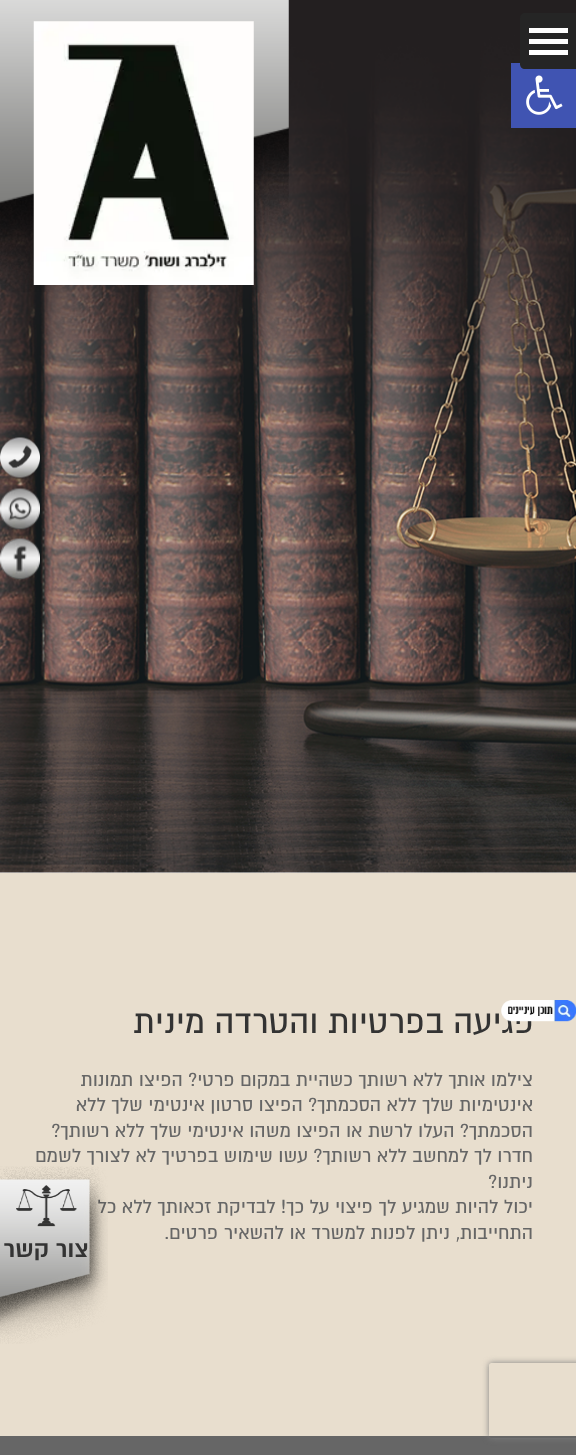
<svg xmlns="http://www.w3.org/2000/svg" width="576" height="1455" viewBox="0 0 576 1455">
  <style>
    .t1 { font: 37.6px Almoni; direction: rtl; fill: #333; }
    .t2 { font: 21.25px Almoni; direction: rtl; fill: #666; }
    .t3 { font: bold 26.5px Almoni; direction: rtl; fill: #333; }
  </style>
  <defs>
    <clipPath id="clip1"><path d="M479 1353H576V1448H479ZM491.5 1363H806.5C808 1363 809 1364 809 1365.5V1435.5C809 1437 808 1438 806.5 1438H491.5C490 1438 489 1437 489 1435.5V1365.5C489 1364 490 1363 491.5 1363Z" clip-rule="evenodd"/></clipPath>
  </defs>
  <rect width="100%" height="100%" fill="#fff"/>
  <image x="0" y="0" width="576" height="873" href="images/1.png"/>
  <rect x="511" y="63" width="65" height="65" fill="#4054b2"/>
  <path d="M525 13H576V69H525C522 69 520 67 520 64V18C520 15 522 13 525 13Z" fill="#252525"/>
  <rect x="529" y="28" width="39" height="5" fill="#fff"/>
  <rect x="529" y="39" width="39" height="5" fill="#fff"/>
  <rect x="529" y="50" width="39" height="5" fill="#fff"/>
  <image x="0" y="0" width="289" height="292" href="images/2.png"/>
  <image x="33" y="21" width="221" height="264" href="images/3.png"/>
  <image x="0" y="437" width="40" height="41" href="images/4.png"/>
  <circle cx="20" cy="509" r="20" fill="#333"/>
  <image x="0" y="488" width="40" height="42" href="images/5.png"/>
  <circle cx="20" cy="559" r="20" fill="#333"/>
  <image x="0" y="538" width="40" height="42" href="images/6.png"/>
  <image x="526" y="75" width="37" height="40" href="images/7.png"/>
  <rect x="0" y="873" width="576" height="563" fill="#e8dece"/>
  <text x="534" y="1033" class="t1">פגיעה בפרטיות והטרדה מינית</text>
  <image x="501" y="1000" width="75" height="22" href="images/8.png"/>
  <text x="533" y="1086" class="t2">צילמו אותך ללא רשותך כשהיית במקום פרטי? הפיצו תמונות</text>
  <text x="533" y="1111" class="t2">אינטימיות שלך ללא הסכמתך? הפיצו סרטון אינטימי שלך ללא</text>
  <text x="533" y="1137" class="t2">הסכמתך? העלו לרשת או הפיצו משהו אינטימי שלך ללא רשותך?</text>
  <text x="533" y="1162" class="t2">חדרו לך למחשב ללא רשותך? עשו שימוש בפרטיך לא לצורך לשמם</text>
  <text x="533" y="1188" class="t2">ניתנו?</text>
  <text x="533" y="1213" class="t2">יכול להיות שמגיע לך פיצוי על כך! לבדיקת זכאותך ללא כל</text>
  <text x="533" y="1239" class="t2">התחייבות, ניתן לפנות למשרד או להשאיר פרטים.</text>
  <image x="0" y="1166" width="108" height="178" href="images/9.png"/>
  <image x="16" y="1185" width="61" height="42" href="images/10.png"/>
  <text x="89" y="1257" class="t3">צור קשר</text>
  <rect x="0" y="1436" width="576" height="19" fill="#666"/>
  <g clip-path="url(#clip1)">
    <rect x="489" y="1363" width="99" height="75" rx="2.5" fill="#808080" filter="blur(3px)"/>
  </g>
</svg>
